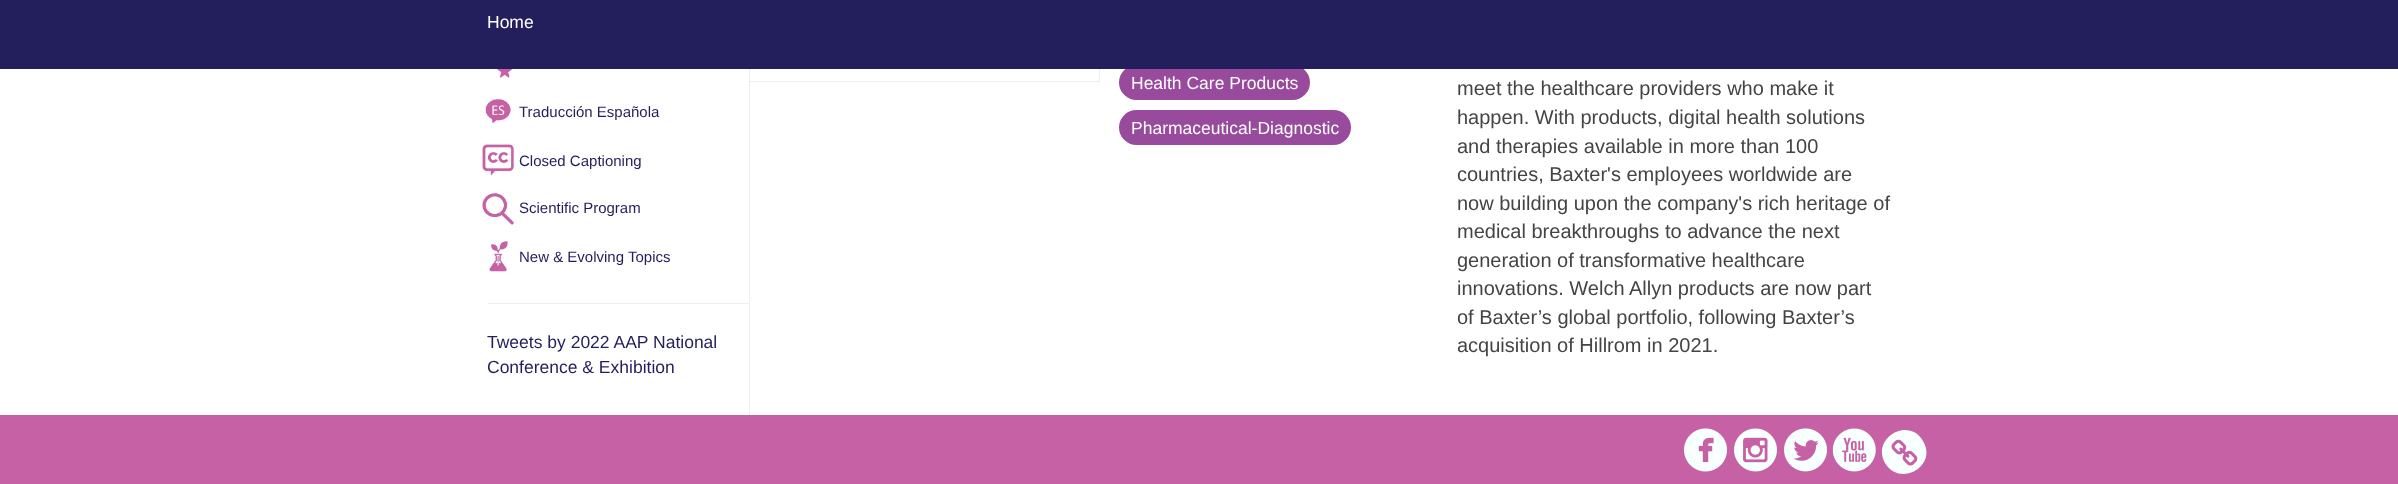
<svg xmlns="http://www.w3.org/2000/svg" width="2398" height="484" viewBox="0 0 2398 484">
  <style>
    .t1 { font: 17.5px Liberation Sans; fill: #fff; }
    .t2 { font: 15px Liberation Sans; fill: #231f5c; }
    .t3 { font: 17.5px Liberation Sans; fill: #231f5c; }
    .t4 { font: 20px Liberation Sans; fill: #444; }
  </style>
  <defs>
    <clipPath id="clip1"><rect x="488" y="329" width="250" height="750"/></clipPath>
  </defs>
  <rect width="100%" height="100%" fill="#fff"/>
  <rect x="1119" y="65" width="191" height="35" rx="17.5" fill="#984a9c"/>
  <rect x="0" y="0" width="2398" height="69" fill="#231f5c"/>
  <text x="487" y="28" class="t1">Home</text>
  <rect x="749" y="69" width="1" height="346" fill="#eee"/>
  <image x="497" y="69" width="15" height="9" href="images/1.png"/>
  <image x="485" y="99" width="26" height="25" href="images/2.png"/>
  <text x="519" y="117" class="t2">Traducción Española</text>
  <image x="482" y="144" width="32" height="32" href="images/3.png"/>
  <text x="519" y="166" class="t2">Closed Captioning</text>
  <image x="482" y="193" width="32" height="32" href="images/4.png"/>
  <text x="519" y="213" class="t2">Scientific Program</text>
  <image x="489" y="241" width="19" height="31" href="images/5.png"/>
  <text x="519" y="262" class="t2">New &amp; Evolving Topics</text>
  <rect x="488" y="303" width="261" height="1" fill="#eee"/>
  <text x="487" y="348" class="t3">Tweets by 2022 AAP National</text>
  <g clip-path="url(#clip1)">
    <text x="487" y="373" class="t3">Conference &amp; Exhibition</text>
  </g>
  <rect x="1099" y="69" width="1" height="14" fill="#efefef"/>
  <rect x="750" y="81" width="349" height="1" fill="#efefef"/>
  <text x="1131" y="89" class="t1">Health Care Products</text>
  <rect x="1119" y="110" width="232" height="35" rx="17.5" fill="#984a9c"/>
  <text x="1131" y="134" class="t1">Pharmaceutical-Diagnostic</text>
  <text x="1457" y="95" class="t4">meet the healthcare providers who make it</text>
  <text x="1457" y="124" class="t4">happen. With products, digital health solutions</text>
  <text x="1457" y="153" class="t4">and therapies available in more than 100</text>
  <text x="1457" y="181" class="t4">countries, Baxter's employees worldwide are</text>
  <text x="1457" y="210" class="t4">now building upon the company's rich heritage of</text>
  <text x="1457" y="238" class="t4">medical breakthroughs to advance the next</text>
  <text x="1457" y="267" class="t4">generation of transformative healthcare</text>
  <text x="1457" y="295" class="t4">innovations. Welch Allyn products are now part</text>
  <text x="1457" y="324" class="t4">of Baxter’s global portfolio, following Baxter’s</text>
  <text x="1457" y="352" class="t4">acquisition of Hillrom in 2021.</text>
  <rect x="0" y="415" width="2398" height="69" fill="#c661a5"/>
  <image x="1684" y="428" width="43" height="44" href="images/6.png"/>
  <image x="1734" y="428" width="43" height="44" href="images/7.png"/>
  <image x="1784" y="428" width="43" height="44" href="images/8.png"/>
  <image x="1832" y="428" width="44" height="44" href="images/9.png"/>
  <path d="M1923 441C1938 466 1900 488 1885 463C1871 438 1909 416 1923 441Z" fill="#f7ffff"/>
  <image x="1891" y="439" width="27" height="27" href="images/10.png"/>
</svg>
